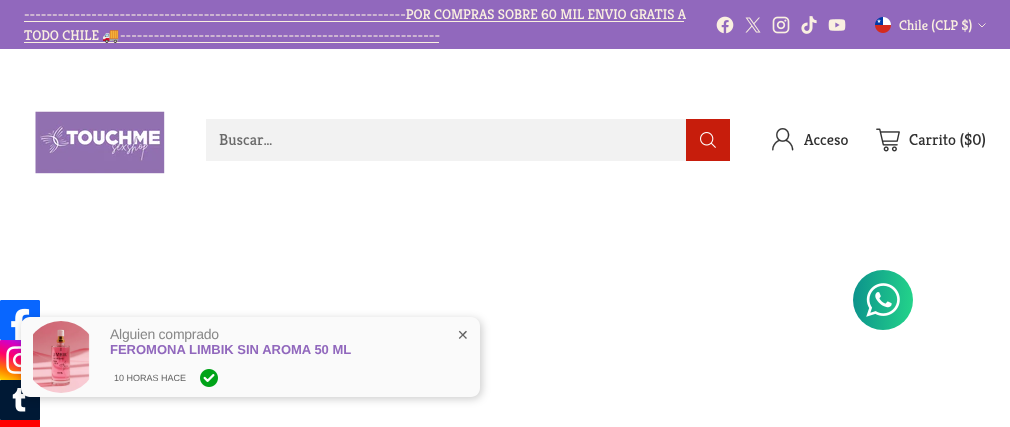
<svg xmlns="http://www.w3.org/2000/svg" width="1010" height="427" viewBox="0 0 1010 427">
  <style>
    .t1 { font: 14px Kreon; fill: #faf0e0; }
    .t2 { font: 14px Noto Color Emoji; fill: #faf0e0; }
    .t3 { font: 16px Kreon; fill: #6a6a6a; }
    .t4 { font: 16px Kreon; fill: #303030; }
    .t5 { font: 14px Liberation Sans; letter-spacing: -0.25px; fill: #888; }
    .t6 { font: bold 13px Liberation Sans; fill: #9168bd; }
    .t7 { font: 14px DejaVu Sans; fill: #636363; }
    .t8 { font: 9px Liberation Sans; fill: #636363; }
  </style>
  <defs>
    <linearGradient id="g1" gradientUnits="userSpaceOnUse" x1="851" y1="298" x2="915" y2="302"><stop offset="0.01" stop-color="#0c928c"/><stop offset="1" stop-color="#24d58a"/></linearGradient>
  </defs>
  <rect width="100%" height="100%" fill="#fff"/>
  <rect x="0" y="0" width="1010" height="49" fill="#9168bd"/>
  <text x="24" y="19" class="t1">--------------------------------------------------------------------POR COMPRAS SOBRE 60 MIL ENVIO GRATIS A</text>
  <rect x="24" y="21" width="660" height="1" fill="#faf0e0"/>
  <text x="24" y="40" class="t1">TODO CHILE</text>
  <rect x="24" y="42" width="415" height="1" fill="#faf0e0"/>
  <text x="102" y="40" class="t2">🚚</text>
  <text x="120" y="40" class="t1">---------------------------------------------------------</text>
  <image x="716" y="16" width="18" height="18" href="images/1.png"/>
  <image x="745" y="17" width="16" height="16" href="images/2.png"/>
  <image x="772" y="16" width="18" height="18" href="images/3.png"/>
  <image x="801" y="16" width="16" height="18" href="images/4.png"/>
  <image x="828" y="19" width="18" height="12" href="images/5.png"/>
  <image x="875" y="17" width="16" height="16" href="images/6.png"/>
  <text x="899" y="30" class="t1">Chile (CLP $)</text>
  <path d="M978.5 23.5L982 27L985.5 23.5" fill="none" stroke="#faf0e0" stroke-width="0.9"/>
  <image x="35" y="111" width="130" height="63" href="images/7.png"/>
  <rect x="206.5" y="119.5" width="523" height="41" fill="none" stroke="#f2f2f2"/>
  <rect x="207" y="120" width="479" height="40" fill="#f2f2f2"/>
  <text x="219" y="145" class="t3">Buscar…</text>
  <rect x="686" y="119" width="44" height="42" fill="#c71d0c"/>
  <image x="700" y="132" width="16" height="16" href="images/8.png"/>
  <image x="772" y="128" width="22" height="23" href="images/9.png"/>
  <text x="804" y="145" class="t4">Acceso</text>
  <image x="876" y="128" width="24" height="24" href="images/10.png"/>
  <text x="909" y="145" class="t4">Carrito ($0)</text>
  <image x="0" y="300" width="40" height="40" href="images/11.png"/>
  <image x="0" y="340" width="21" height="40" href="images/12.png"/>
  <image x="0" y="380" width="40" height="40" href="images/13.png"/>
  <rect x="0" y="420" width="40" height="7" fill="#f00"/>
  <rect x="22" y="319" width="460" height="80" rx="9" fill="#00000033" filter="blur(4px)"/>
  <path d="M30 317H101V397H30C25 397 21 393 21 388V326C21 321 25 317 30 317Z" fill="#fafafa"/>
  <image x="33" y="321" width="57" height="72" href="images/14.png"/>
  <path d="M100 317H471C476 317 480 321 480 326V388C480 393 476 397 471 397H100Z" fill="#fafafa"/>
  <text x="110" y="339" class="t5">Alguien comprado</text>
  <text x="110" y="354" class="t6">FEROMONA LIMBIK SIN AROMA 50 ML</text>
  <text x="457" y="340" class="t7">✕</text>
  <text x="114" y="381" class="t8">10 HORAS HACE</text>
  <image x="200" y="369" width="18" height="18" href="images/15.png"/>
  <circle cx="883" cy="300" r="30" fill="url(#g1)"/>
  <image x="866" y="283" width="34" height="34" href="images/16.png"/>
</svg>
